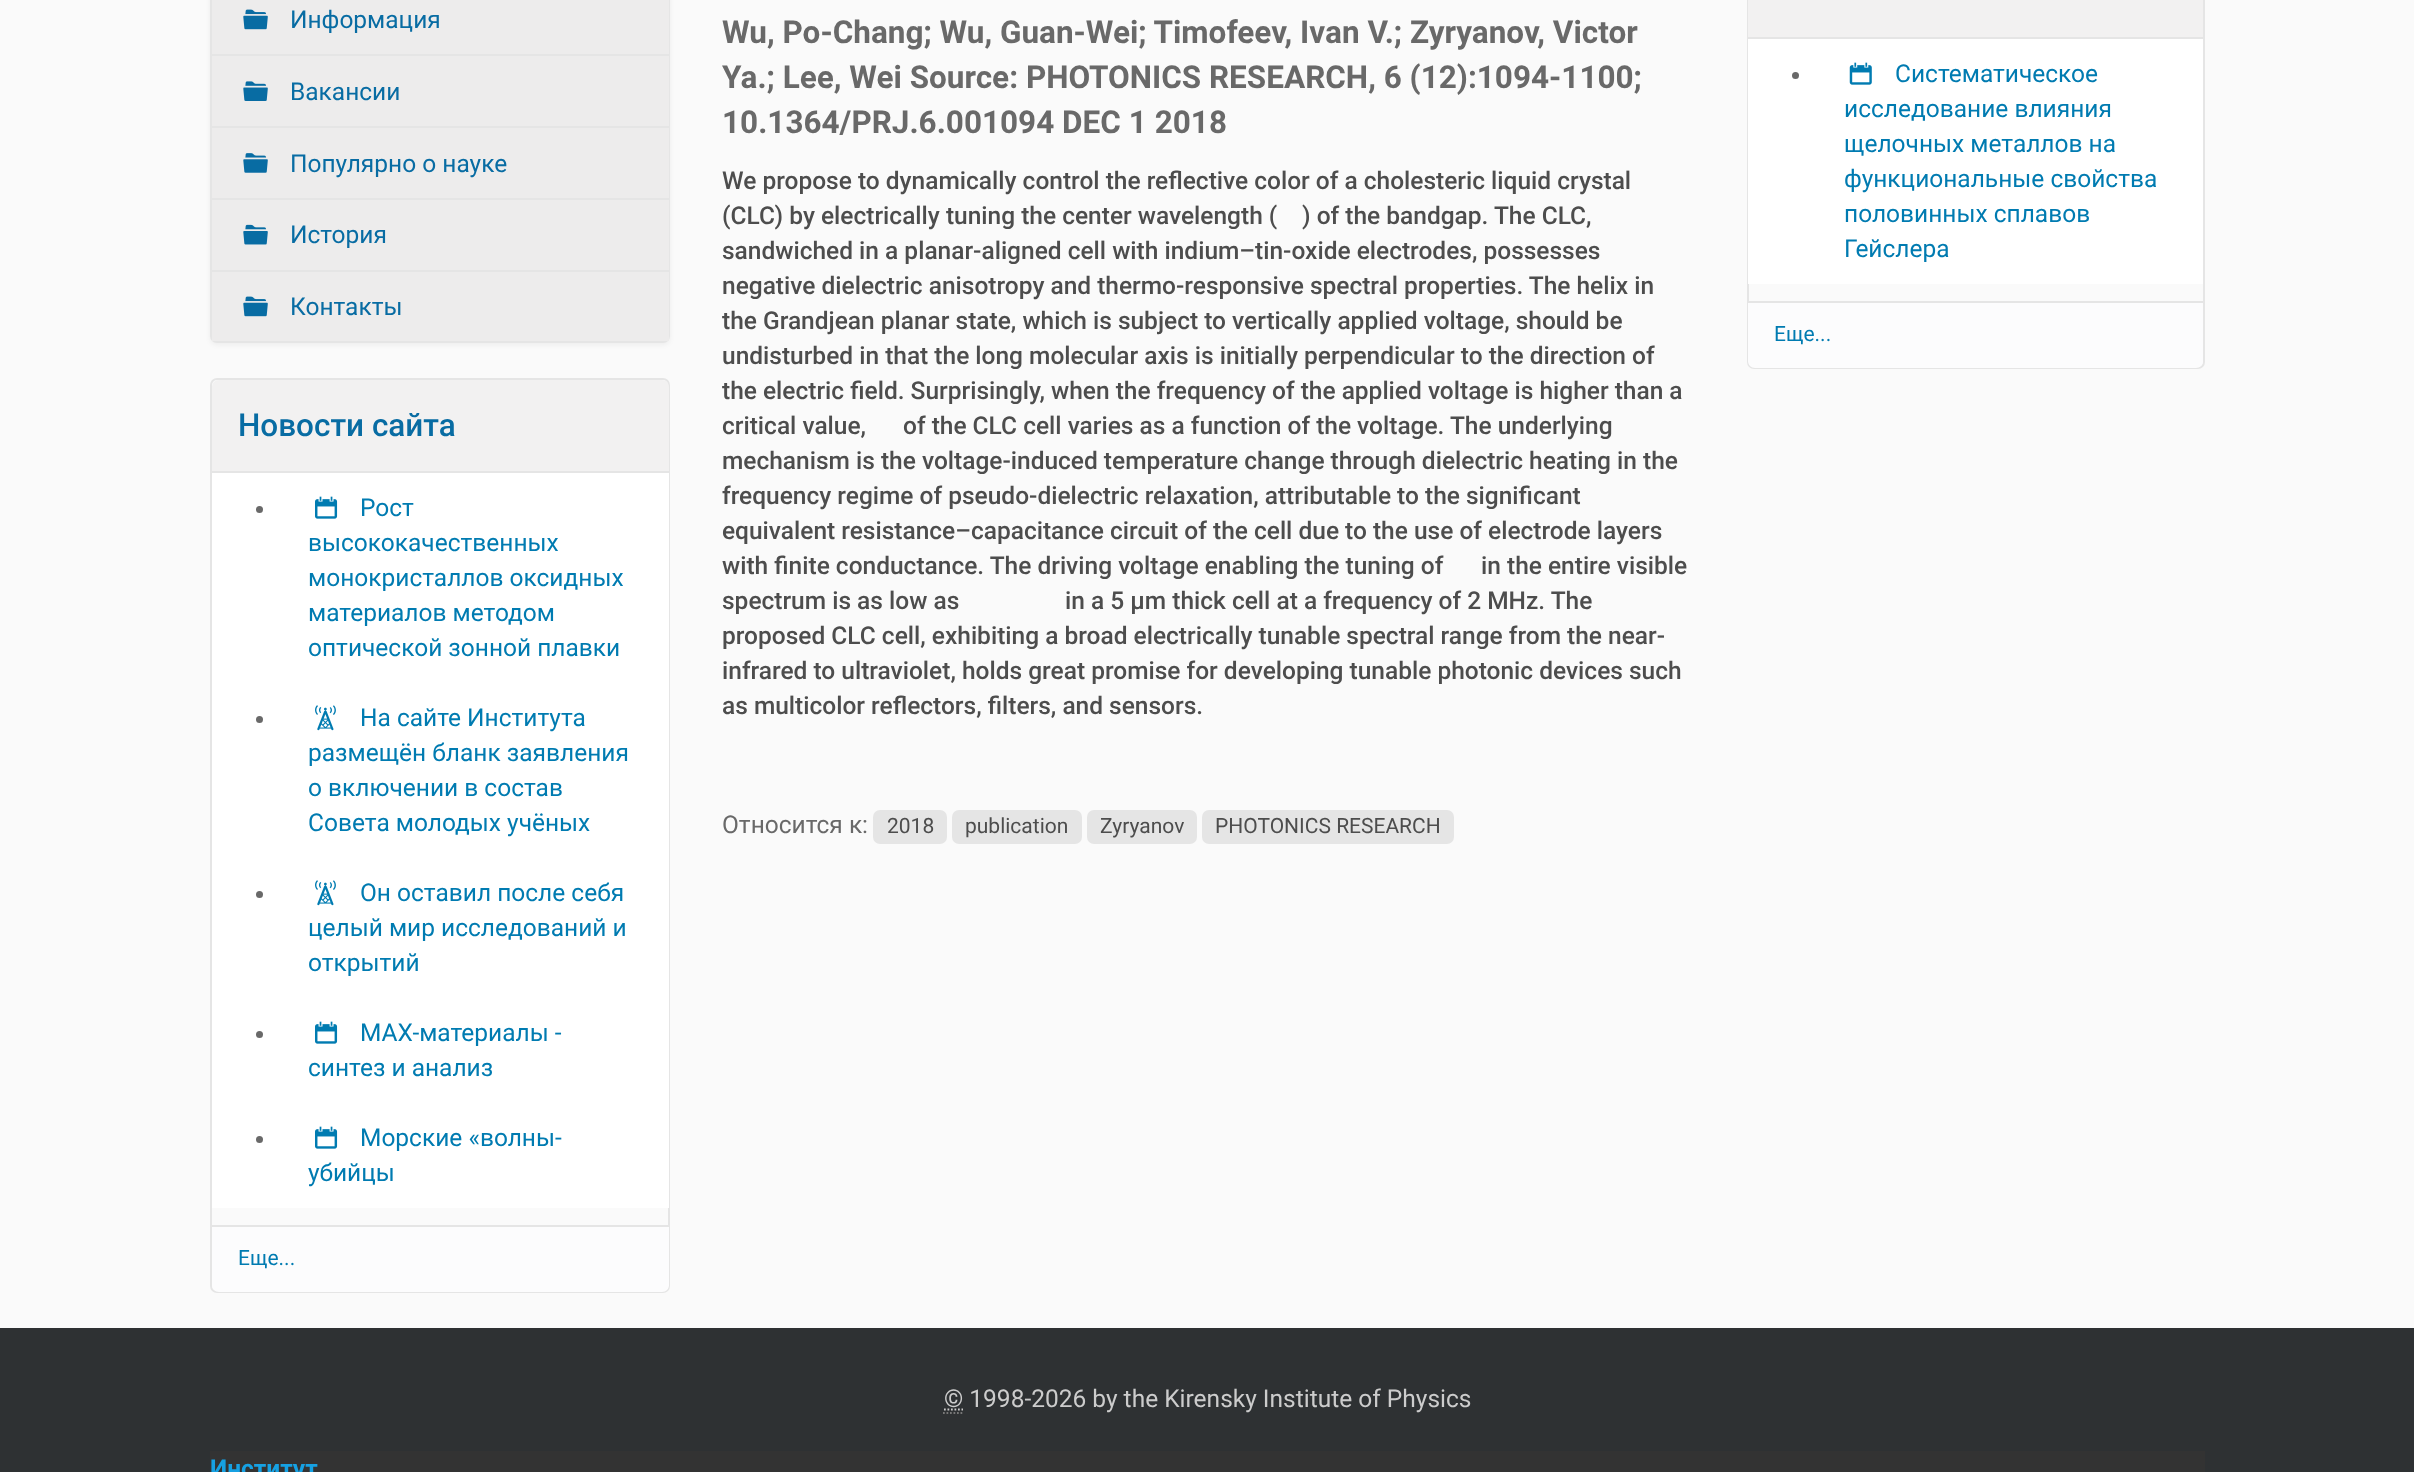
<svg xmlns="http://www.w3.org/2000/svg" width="2414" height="1472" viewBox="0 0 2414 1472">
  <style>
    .t1 { font: 24.5px Roboto; fill: #086ca3; }
    .t2 { font: 500 31.5px Roboto; fill: #086ca3; }
    .t3 { font: 24.5px Roboto; fill: #007bb1; }
    .t4 { font: 21px Roboto; fill: #007bb1; }
    .t5 { font: bold 31.5px Roboto; fill: #696969; }
    .t6 { font: 500 24.5px Roboto; fill: #4d4d4d; }
    .t7 { font: 24.5px Roboto; fill: #696969; }
    .t8 { font: 21px Roboto; fill: #4d4d4d; }
    .t9 { font: 24.5px Roboto; fill: #ccc; }
    .t10 { font: bold 24.5px Roboto; fill: #16a1e3; }
  </style>
  <rect width="100%" height="100%" fill="#fafafa"/>
  <rect x="210" y="-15" width="460" height="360" rx="7" fill="#0000000d" filter="blur(2.5px)"/>
  <rect x="211" y="-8" width="458" height="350" rx="6" fill="none" stroke="#e5e5e5" stroke-width="2"/>
  <rect x="212" y="0" width="457" height="54" fill="#edecec"/>
  <image x="243" y="9" width="25" height="21" href="images/1.png"/>
  <text x="290" y="28" class="t1">Информация</text>
  <rect x="212" y="56" width="457" height="70" fill="#edecec"/>
  <rect x="212" y="54" width="457" height="2" fill="#e5e5e5"/>
  <image x="243" y="81" width="25" height="20" href="images/2.png"/>
  <text x="290" y="100" class="t1">Вакансии</text>
  <rect x="212" y="128" width="457" height="70" fill="#edecec"/>
  <rect x="212" y="126" width="457" height="2" fill="#e5e5e5"/>
  <image x="243" y="153" width="25" height="20" href="images/3.png"/>
  <text x="290" y="172" class="t1">Популярно о науке</text>
  <rect x="212" y="200" width="457" height="70" fill="#edecec"/>
  <rect x="212" y="198" width="457" height="2" fill="#e5e5e5"/>
  <image x="243" y="224" width="25" height="21" href="images/4.png"/>
  <text x="290" y="243" class="t1">История</text>
  <rect x="212" y="272" width="457" height="69" fill="#edecec"/>
  <rect x="212" y="270" width="457" height="2" fill="#e5e5e5"/>
  <image x="243" y="296" width="25" height="21" href="images/1.png"/>
  <text x="290" y="315" class="t1">Контакты</text>
  <rect x="211" y="379" width="458" height="913" rx="6" fill="none" stroke="#e5e5e5" stroke-width="2"/>
  <path d="M219 380H662C666 380 669 383 669 387V471H212V387C212 383 215 380 219 380Z" fill="#f2f1f1"/>
  <text x="238" y="436" class="t2">Новости сайта</text>
  <rect x="212" y="473" width="457" height="735" fill="#fff"/>
  <rect x="212" y="471" width="457" height="2" fill="#e5e5e5"/>
  <circle cx="259.5" cy="509.5" r="3.5" fill="#696969"/>
  <image x="315" y="496" width="23" height="23" href="images/5.png"/>
  <text x="360" y="516" class="t3">Рост</text>
  <text x="308" y="551" class="t3">высококачественных</text>
  <text x="308" y="586" class="t3">монокристаллов оксидных</text>
  <text x="308" y="621" class="t3">материалов методом</text>
  <text x="308" y="656" class="t3">оптической зонной плавки</text>
  <circle cx="259.5" cy="719.5" r="3.5" fill="#696969"/>
  <image x="315" y="705" width="21" height="26" href="images/6.png"/>
  <text x="360" y="726" class="t3">На сайте Института</text>
  <text x="308" y="761" class="t3">размещён бланк заявления</text>
  <text x="308" y="796" class="t3">о включении в состав</text>
  <text x="308" y="831" class="t3">Совета молодых учёных</text>
  <circle cx="259.5" cy="894.5" r="3.5" fill="#696969"/>
  <image x="315" y="880" width="21" height="26" href="images/6.png"/>
  <text x="360" y="901" class="t3">Он оставил после себя</text>
  <text x="308" y="936" class="t3">целый мир исследований и</text>
  <text x="308" y="971" class="t3">открытий</text>
  <circle cx="259.5" cy="1034.5" r="3.5" fill="#696969"/>
  <image x="315" y="1021" width="23" height="23" href="images/5.png"/>
  <text x="360" y="1041" class="t3">МАХ-материалы -</text>
  <text x="308" y="1076" class="t3">синтез и анализ</text>
  <circle cx="259.5" cy="1139.5" r="3.5" fill="#696969"/>
  <image x="315" y="1126" width="23" height="23" href="images/5.png"/>
  <text x="360" y="1146" class="t3">Морские «волны-</text>
  <text x="308" y="1181" class="t3">убийцы</text>
  <path d="M212 1225H669V1285C669 1289 666 1292 662 1292H219C215 1292 212 1289 212 1285Z" fill="#fcfcfd"/>
  <rect x="212" y="1225" width="457" height="2" fill="#e5e5e5"/>
  <text x="238" y="1265" class="t4">Еще...</text>
  <text x="722" y="43" class="t5">Wu, Po-Chang; Wu, Guan-Wei; Timofeev, Ivan V.; Zyryanov, Victor</text>
  <text x="722" y="88" class="t5">Ya.; Lee, Wei Source: PHOTONICS RESEARCH, 6 (12):1094-1100;</text>
  <text x="722" y="133" class="t5">10.1364/PRJ.6.001094 DEC 1 2018</text>
  <text x="722" y="189" class="t6">We propose to dynamically control the reflective color of a cholesteric liquid crystal</text>
  <text x="722" y="224" class="t6">(CLC) by electrically tuning the center wavelength (</text>
  <text x="1302" y="224" class="t6">) of the bandgap. The CLC,</text>
  <text x="722" y="259" class="t6">sandwiched in a planar-aligned cell with indium–tin-oxide electrodes, possesses</text>
  <text x="722" y="294" class="t6">negative dielectric anisotropy and thermo-responsive spectral properties. The helix in</text>
  <text x="722" y="329" class="t6">the Grandjean planar state, which is subject to vertically applied voltage, should be</text>
  <text x="722" y="364" class="t6">undisturbed in that the long molecular axis is initially perpendicular to the direction of</text>
  <text x="722" y="399" class="t6">the electric field. Surprisingly, when the frequency of the applied voltage is higher than a</text>
  <text x="722" y="434" class="t6">critical value,</text>
  <text x="903" y="434" class="t6">of the CLC cell varies as a function of the voltage. The underlying</text>
  <text x="722" y="469" class="t6">mechanism is the voltage-induced temperature change through dielectric heating in the</text>
  <text x="722" y="504" class="t6">frequency regime of pseudo-dielectric relaxation, attributable to the significant</text>
  <text x="722" y="539" class="t6">equivalent resistance–capacitance circuit of the cell due to the use of electrode layers</text>
  <text x="722" y="574" class="t6">with finite conductance. The driving voltage enabling the tuning of</text>
  <text x="1481" y="574" class="t6">in the entire visible</text>
  <text x="722" y="609" class="t6">spectrum is as low as</text>
  <text x="1065" y="609" class="t6">in a 5 μm thick cell at a frequency of 2 MHz. The</text>
  <text x="722" y="644" class="t6">proposed CLC cell, exhibiting a broad electrically tunable spectral range from the near-</text>
  <text x="722" y="679" class="t6">infrared to ultraviolet, holds great promise for developing tunable photonic devices such</text>
  <text x="722" y="714" class="t6">as multicolor reflectors, filters, and sensors.</text>
  <text x="722" y="833" class="t7">Относится к:</text>
  <rect x="873" y="810" width="74" height="34" rx="7" fill="#e5e5e5"/>
  <text x="887" y="833" class="t8">2018</text>
  <rect x="952" y="810" width="130" height="34" rx="7" fill="#e5e5e5"/>
  <text x="965" y="833" class="t8">publication</text>
  <rect x="1087" y="810" width="110" height="34" rx="7" fill="#e5e5e5"/>
  <text x="1100" y="833" class="t8">Zyryanov</text>
  <rect x="1202" y="810" width="252" height="34" rx="7" fill="#e5e5e5"/>
  <text x="1215" y="833" class="t8">PHOTONICS RESEARCH</text>
  <rect x="1748" y="-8" width="456" height="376" rx="6" fill="none" stroke="#e5e5e5" stroke-width="2"/>
  <rect x="1748" y="0" width="455" height="37" fill="#f2f1f1"/>
  <rect x="1748" y="39" width="455" height="245" fill="#fff"/>
  <rect x="1748" y="37" width="455" height="2" fill="#e5e5e5"/>
  <circle cx="1795.5" cy="75.5" r="3.5" fill="#696969"/>
  <image x="1849" y="62" width="23" height="23" href="images/7.png"/>
  <text x="1895" y="82" class="t3">Систематическое</text>
  <text x="1844" y="117" class="t3">исследование влияния</text>
  <text x="1844" y="152" class="t3">щелочных металлов на</text>
  <text x="1844" y="187" class="t3">функциональные свойства</text>
  <text x="1844" y="222" class="t3">половинных сплавов</text>
  <text x="1844" y="257" class="t3">Гейслера</text>
  <path d="M1748 301H2203V361C2203 365 2200 368 2196 368H1755C1751 368 1748 365 1748 361Z" fill="#fcfcfd"/>
  <rect x="1748" y="301" width="455" height="2" fill="#e5e5e5"/>
  <text x="1774" y="341" class="t4">Еще...</text>
  <rect x="0" y="1328" width="2414" height="144" fill="#2e3133"/>
  <path d="M943 1413H962.5" fill="none" stroke="#777" stroke-width="1.8" stroke-dasharray="1.75 1.75"/>
  <path d="M944 1409.5H963" fill="none" stroke="#ccc" stroke-width="1.8" stroke-dasharray="1.75 1.75"/>
  <text x="944" y="1407" class="t9">© 1998-2026 by the Kirensky Institute of Physics</text>
  <rect x="210" y="1451" width="1995" height="21" fill="#333"/>
  <text x="210" y="1477" class="t10">Институт</text>
</svg>
